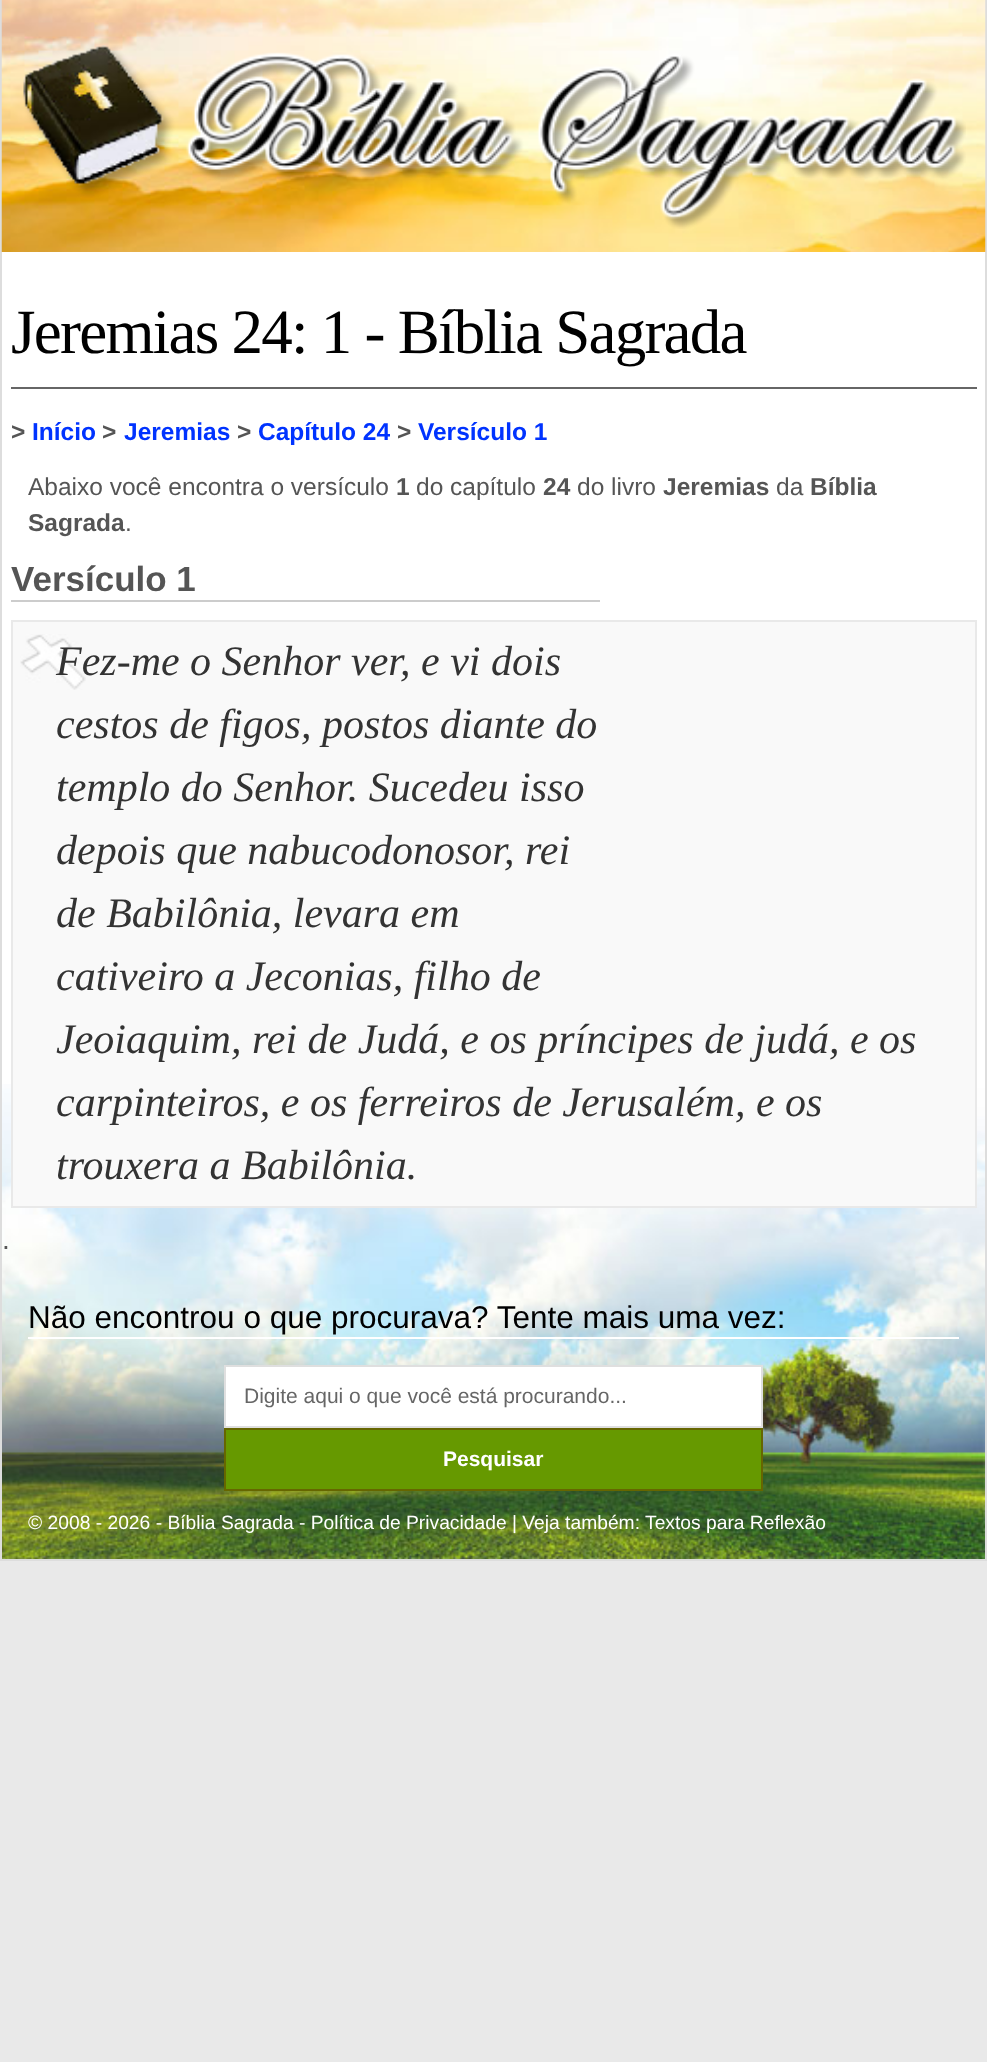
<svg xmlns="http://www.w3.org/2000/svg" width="987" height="2062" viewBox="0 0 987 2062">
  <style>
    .t1 { font: 63px Liberation Serif; letter-spacing: -1.75px; fill: #000; }
    .t2 { font: bold 24.5px Liberation Sans; fill: #555; }
    .t3 { font: bold 24.5px Liberation Sans; fill: #03f; }
    .t4 { font: 24.5px Liberation Sans; fill: #555; }
    .t5 { font: bold 35px Liberation Sans; fill: #555; }
    .t6 { font: italic 42px Liberation Serif; fill: #333; }
    .t7 { font: 28px Liberation Sans; fill: #555; }
    .t8 { font: 31.5px Liberation Sans; fill: #000; }
    .t9 { font: 21px Liberation Sans; fill: #666; }
    .t10 { font: bold 21px Liberation Sans; fill: #fff; }
    .t11 { font: 19.25px Liberation Sans; fill: #fff; }
  </style>
  <rect width="100%" height="100%" fill="#e9e9e9"/>
  <rect x="2" y="252" width="983" height="832" fill="#fff"/>
  <image x="2" y="1084" width="983" height="475" href="images/1.png"/>
  <rect x="985" y="0" width="2" height="1561" fill="#ddd"/>
  <rect x="0" y="1559" width="987" height="2" fill="#ddd"/>
  <rect x="0" y="0" width="2" height="1561" fill="#ddd"/>
  <image x="1" y="0" width="985" height="252" href="images/2.png"/>
  <image x="23" y="45" width="943" height="184" href="images/3.png"/>
  <rect x="11" y="387" width="966" height="2" fill="#666"/>
  <text x="11" y="353" class="t1">Jeremias 24: 1 - Bíblia Sagrada</text>
  <text x="11" y="440" class="t2">&gt;</text>
  <text x="32" y="440" class="t3">Início</text>
  <text x="102" y="440" class="t2">&gt;</text>
  <text x="124" y="440" class="t3">Jeremias</text>
  <text x="237" y="440" class="t2">&gt;</text>
  <text x="258" y="440" class="t3">Capítulo 24</text>
  <text x="397" y="440" class="t2">&gt;</text>
  <text x="418" y="440" class="t3">Versículo 1</text>
  <text x="28" y="495" class="t4">Abaixo você encontra o versículo</text>
  <text x="396" y="495" class="t2">1</text>
  <text x="416" y="495" class="t4">do capítulo</text>
  <text x="543" y="495" class="t2">24</text>
  <text x="577" y="495" class="t4">do livro</text>
  <text x="663" y="495" class="t2">Jeremias</text>
  <text x="776" y="495" class="t4">da</text>
  <text x="810" y="495" class="t2">Bíblia</text>
  <text x="28" y="531" class="t2">Sagrada</text>
  <text x="125" y="531" class="t4">.</text>
  <rect x="11" y="600" width="589" height="2" fill="#ccc"/>
  <text x="11" y="591" class="t5">Versículo 1</text>
  <rect x="13" y="622" width="962" height="584" fill="#f9f9f9"/>
  <image x="20" y="634" width="66" height="56" href="images/4.png"/>
  <rect x="12" y="621" width="964" height="586" fill="none" stroke="#e9e9e9" stroke-width="2"/>
  <text x="56" y="675" class="t6">Fez-me o Senhor ver, e vi dois</text>
  <text x="56" y="738" class="t6">cestos de figos, postos diante do</text>
  <text x="56" y="801" class="t6">templo do Senhor. Sucedeu isso</text>
  <text x="56" y="864" class="t6">depois que nabucodonosor, rei</text>
  <text x="56" y="927" class="t6">de Babilônia, levara em</text>
  <text x="56" y="990" class="t6">cativeiro a Jeconias, filho de</text>
  <text x="56" y="1053" class="t6">Jeoiaquim, rei de Judá, e os príncipes de judá, e os</text>
  <text x="56" y="1116" class="t6">carpinteiros, e os ferreiros de Jerusalém, e os</text>
  <text x="56" y="1179" class="t6">trouxera a Babilônia.</text>
  <text x="2" y="1249" class="t7">.</text>
  <rect x="28" y="1337" width="931" height="2" fill="#fff"/>
  <text x="28" y="1328" class="t8">Não encontrou o que procurava? Tente mais uma vez:</text>
  <rect x="225" y="1366" width="537" height="61" fill="#fff" stroke="#dfdfdf" stroke-width="2"/>
  <text x="244" y="1403" class="t9">Digite aqui o que você está procurando...</text>
  <rect x="225" y="1429" width="537" height="61" fill="#690" stroke="#660" stroke-width="2"/>
  <text x="443" y="1466" class="t10">Pesquisar</text>
  <text x="28" y="1529" class="t11">© 2008 - 2026 - Bíblia Sagrada - Política de Privacidade | Veja também:</text>
  <text x="645" y="1529" class="t11">Textos para Reflexão</text>
</svg>
